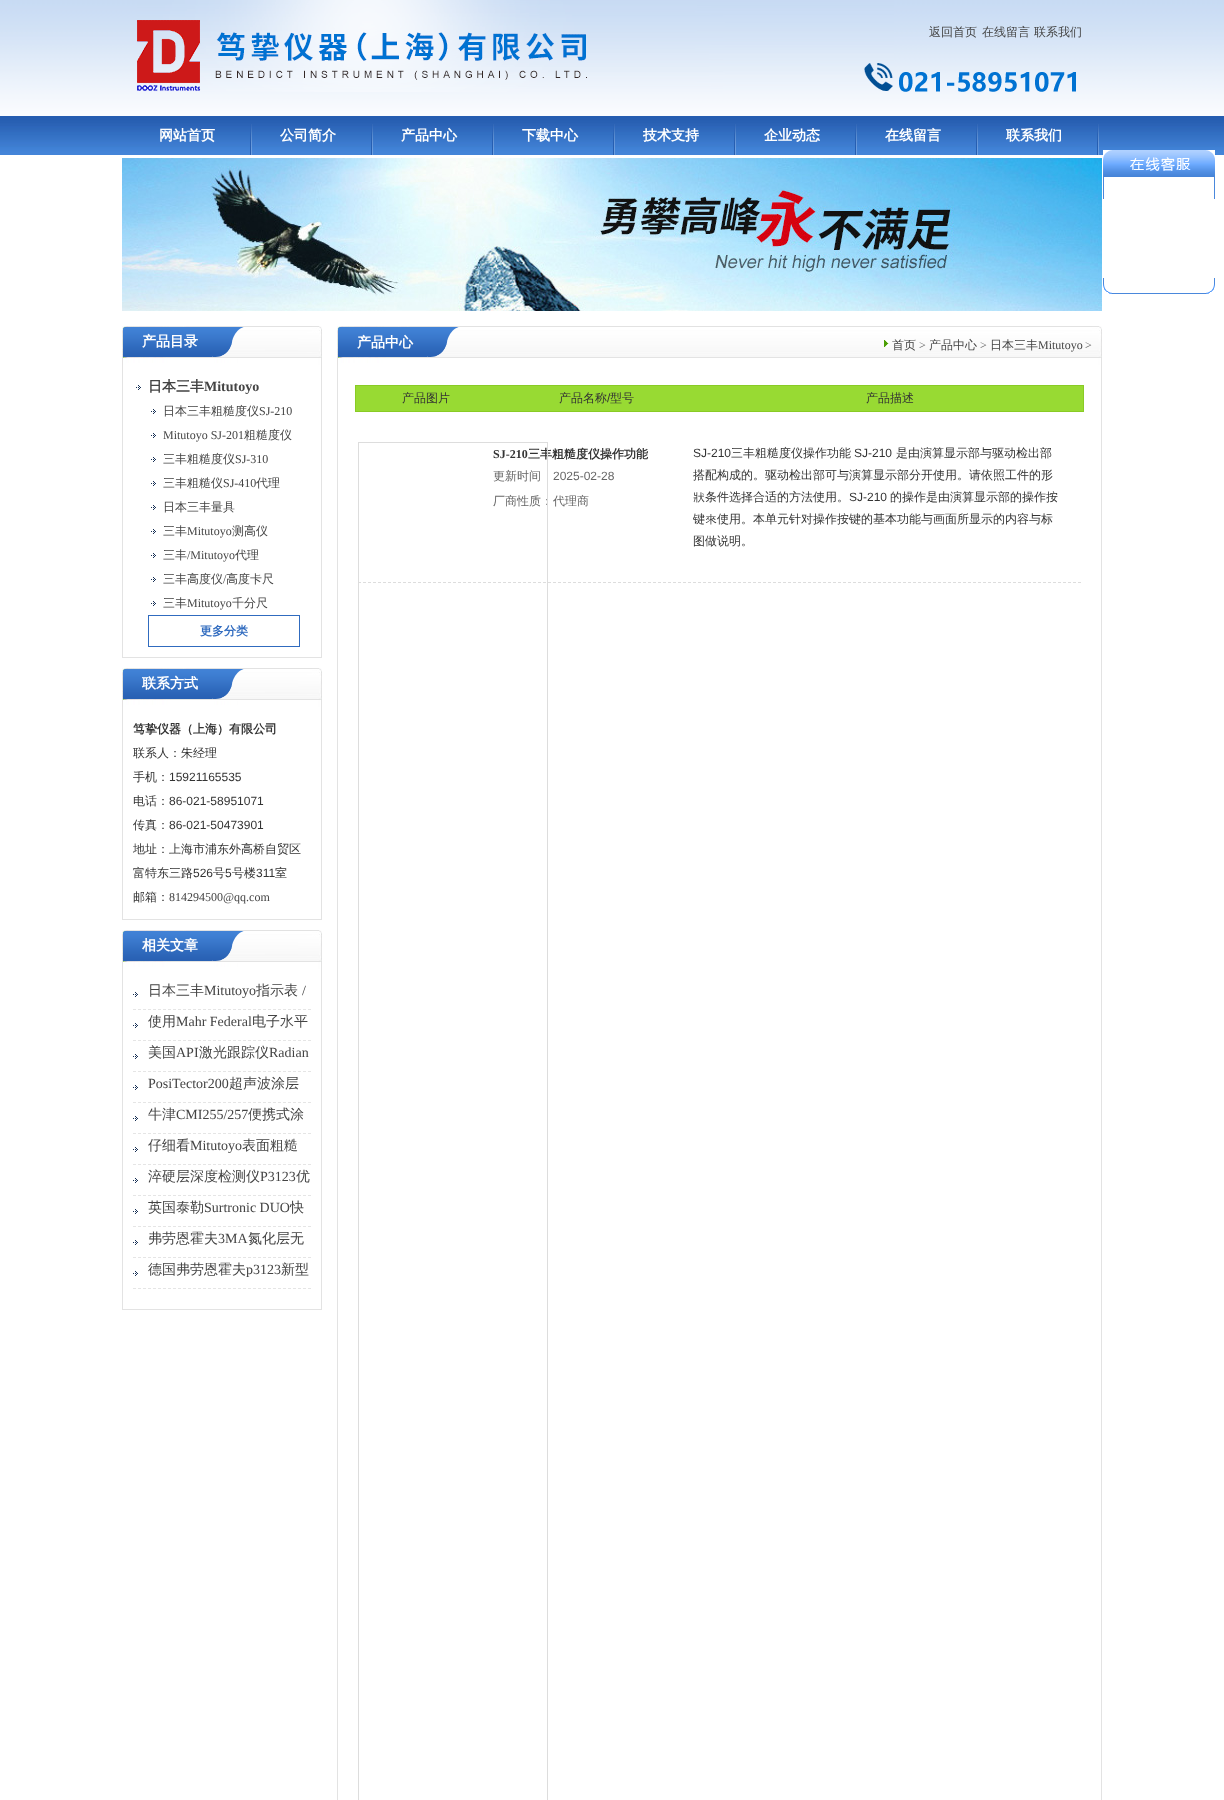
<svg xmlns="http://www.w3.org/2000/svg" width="1224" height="1800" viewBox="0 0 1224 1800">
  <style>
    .t1 { font: 500 12px WenQuanYi Zen Hei; fill: #444; }
    .t2 { font: bold 14px WenQuanYi Zen Hei; fill: #fff; }
    .t3 { font: bold 14px WenQuanYi Zen Hei; fill: #444; }
    .t4 { font: bold 14px Liberation Serif; fill: #444; }
    .t5 { font: 12px Liberation Serif; fill: #444; }
    .t6 { font: bold 12px WenQuanYi Zen Hei; fill: #306bbf; }
    .t7 { font: bold 12px WenQuanYi Zen Hei; fill: #333; }
    .t8 { font: 500 12px WenQuanYi Zen Hei; fill: #333; }
    .t9 { font: 12px Liberation Sans; fill: #333; }
    .t10 { font: 500 14px WenQuanYi Zen Hei; fill: #444; }
    .t11 { font: 14px Liberation Serif; fill: #444; }
    .t12 { font: 12px Liberation Serif; fill: #666; }
    .t13 { font: 500 12px WenQuanYi Zen Hei; fill: #666; }
    .t14 { font: bold 12px Liberation Serif; fill: #333; }
    .t15 { font: 12px Liberation Sans; fill: #666; }
  </style>
  <rect width="100%" height="100%" fill="#fff"/>
  <image x="0" y="0" width="1224" height="116" href="images/1.png"/>
  <image x="137" y="0" width="757" height="92" href="images/2.png"/>
  <text x="929" y="36" class="t1">返回首页</text>
  <text x="982" y="36" class="t1">在线留言</text>
  <text x="1034" y="36" class="t1">联系我们</text>
  <image x="899" y="72" width="177" height="20" href="images/3.png"/>
  <image x="0" y="116" width="1224" height="39" href="images/4.png"/>
  <image x="250" y="124" width="2" height="31" href="images/5.png"/>
  <text x="159" y="140" class="t2">网站首页</text>
  <image x="371" y="124" width="2" height="31" href="images/5.png"/>
  <text x="280" y="140" class="t2">公司简介</text>
  <image x="492" y="124" width="2" height="31" href="images/5.png"/>
  <text x="401" y="140" class="t2">产品中心</text>
  <image x="613" y="124" width="2" height="31" href="images/5.png"/>
  <text x="522" y="140" class="t2">下载中心</text>
  <image x="734" y="124" width="2" height="31" href="images/5.png"/>
  <text x="643" y="140" class="t2">技术支持</text>
  <image x="855" y="124" width="2" height="31" href="images/5.png"/>
  <text x="764" y="140" class="t2">企业动态</text>
  <image x="976" y="124" width="2" height="31" href="images/5.png"/>
  <text x="885" y="140" class="t2">在线留言</text>
  <image x="1097" y="124" width="2" height="31" href="images/5.png"/>
  <text x="1006" y="140" class="t2">联系我们</text>
  <image x="122" y="158" width="980" height="153" href="images/6.png"/>
  <image x="1103" y="150" width="112" height="49" href="images/7.png"/>
  <image x="1103" y="278" width="112" height="16" href="images/8.png"/>
  <image x="122" y="326" width="200" height="39" href="images/9.png"/>
  <text x="142" y="346" class="t2">产品目录</text>
  <rect x="321" y="365" width="1" height="293" fill="#e3e3e3"/>
  <rect x="122" y="657" width="200" height="1" fill="#e3e3e3"/>
  <rect x="122" y="365" width="1" height="293" fill="#e3e3e3"/>
  <image x="136" y="385" width="5" height="5" href="images/10.png"/>
  <text x="148" y="391" class="t3">日本三丰</text>
  <text x="204" y="391" class="t4">Mitutoyo</text>
  <image x="151" y="409" width="5" height="5" href="images/10.png"/>
  <text x="163" y="415" class="t1">日本三丰粗糙度仪</text>
  <text x="259" y="415" class="t5">SJ-210</text>
  <image x="151" y="433" width="5" height="5" href="images/10.png"/>
  <text x="163" y="439" class="t5">Mitutoyo SJ-201</text>
  <text x="244" y="439" class="t1">粗糙度仪</text>
  <image x="151" y="457" width="5" height="5" href="images/10.png"/>
  <text x="163" y="463" class="t1">三丰粗糙度仪</text>
  <text x="235" y="463" class="t5">SJ-310</text>
  <image x="151" y="481" width="5" height="5" href="images/10.png"/>
  <text x="163" y="487" class="t1">三丰粗糙仪</text>
  <text x="223" y="487" class="t5">SJ-410</text>
  <text x="256" y="487" class="t1">代理</text>
  <image x="151" y="505" width="5" height="5" href="images/10.png"/>
  <text x="163" y="511" class="t1">日本三丰量具</text>
  <image x="151" y="529" width="5" height="5" href="images/10.png"/>
  <text x="163" y="535" class="t1">三丰</text>
  <text x="187" y="535" class="t5">Mitutoyo</text>
  <text x="232" y="535" class="t1">测高仪</text>
  <image x="151" y="553" width="5" height="5" href="images/10.png"/>
  <text x="163" y="559" class="t1">三丰</text>
  <text x="187" y="559" class="t5">/Mitutoyo</text>
  <text x="235" y="559" class="t1">代理</text>
  <image x="151" y="577" width="5" height="5" href="images/10.png"/>
  <text x="163" y="583" class="t1">三丰高度仪</text>
  <text x="223" y="583" class="t5">/</text>
  <text x="226" y="583" class="t1">高度卡尺</text>
  <image x="151" y="601" width="5" height="5" href="images/10.png"/>
  <text x="163" y="607" class="t1">三丰</text>
  <text x="187" y="607" class="t5">Mitutoyo</text>
  <text x="232" y="607" class="t1">千分尺</text>
  <rect x="148.5" y="615.5" width="151" height="31" fill="none" stroke="#306bbf"/>
  <text x="200" y="635" class="t6">更多分类</text>
  <image x="122" y="668" width="200" height="39" href="images/9.png"/>
  <text x="142" y="688" class="t2">联系方式</text>
  <rect x="321" y="707" width="1" height="213" fill="#e3e3e3"/>
  <rect x="122" y="919" width="200" height="1" fill="#e3e3e3"/>
  <rect x="122" y="707" width="1" height="213" fill="#e3e3e3"/>
  <text x="133" y="733" class="t7">笃挚仪器（上海）有限公司</text>
  <text x="133" y="757" class="t8">联系人：朱经理</text>
  <text x="133" y="781" class="t8">手机：</text>
  <text x="169" y="781" class="t9">15921165535</text>
  <text x="133" y="805" class="t8">电话：</text>
  <text x="169" y="805" class="t9">86-021-58951071</text>
  <text x="133" y="829" class="t8">传真：</text>
  <text x="169" y="829" class="t9">86-021-50473901</text>
  <text x="133" y="853" class="t8">地址：上海市浦东外高桥自贸区</text>
  <text x="133" y="877" class="t8">富特东三路</text>
  <text x="193" y="877" class="t9">526</text>
  <text x="213" y="877" class="t8">号</text>
  <text x="225" y="877" class="t9">5</text>
  <text x="232" y="877" class="t8">号楼</text>
  <text x="256" y="877" class="t9">311</text>
  <text x="275" y="877" class="t8">室</text>
  <text x="133" y="901" class="t8">邮箱：</text>
  <text x="169" y="901" class="t5">814294500@qq.com</text>
  <image x="122" y="930" width="200" height="39" href="images/9.png"/>
  <text x="142" y="950" class="t2">相关文章</text>
  <rect x="321" y="969" width="1" height="341" fill="#e3e3e3"/>
  <rect x="122" y="1309" width="200" height="1" fill="#e3e3e3"/>
  <rect x="122" y="969" width="1" height="341" fill="#e3e3e3"/>
  <image x="133" y="992" width="5" height="5" href="images/10.png"/>
  <path d="M133 1009.5H311" fill="none" stroke="#e5e5e5" stroke-dasharray="3 2"/>
  <text x="148" y="995" class="t10">日本三丰</text>
  <text x="204" y="995" class="t11">Mitutoyo</text>
  <text x="256" y="995" class="t10">指示表</text>
  <text x="302" y="995" class="t11">/</text>
  <image x="133" y="1023" width="5" height="5" href="images/10.png"/>
  <path d="M133 1040.5H311" fill="none" stroke="#e5e5e5" stroke-dasharray="3 2"/>
  <text x="148" y="1026" class="t10">使用</text>
  <text x="176" y="1026" class="t11">Mahr Federal</text>
  <text x="252" y="1026" class="t10">电子水平</text>
  <image x="133" y="1054" width="5" height="5" href="images/10.png"/>
  <path d="M133 1071.5H311" fill="none" stroke="#e5e5e5" stroke-dasharray="3 2"/>
  <text x="148" y="1057" class="t10">美国</text>
  <text x="176" y="1057" class="t11">API</text>
  <text x="199" y="1057" class="t10">激光跟踪仪</text>
  <text x="269" y="1057" class="t11">Radian</text>
  <image x="133" y="1085" width="5" height="5" href="images/10.png"/>
  <path d="M133 1102.5H311" fill="none" stroke="#e5e5e5" stroke-dasharray="3 2"/>
  <text x="148" y="1088" class="t11">PosiTector200</text>
  <text x="229" y="1088" class="t10">超声波涂层</text>
  <image x="133" y="1116" width="5" height="5" href="images/10.png"/>
  <path d="M133 1133.5H311" fill="none" stroke="#e5e5e5" stroke-dasharray="3 2"/>
  <text x="148" y="1119" class="t10">牛津</text>
  <text x="176" y="1119" class="t11">CMI255/257</text>
  <text x="248" y="1119" class="t10">便携式涂</text>
  <image x="133" y="1147" width="5" height="5" href="images/10.png"/>
  <path d="M133 1164.5H311" fill="none" stroke="#e5e5e5" stroke-dasharray="3 2"/>
  <text x="148" y="1150" class="t10">仔细看</text>
  <text x="190" y="1150" class="t11">Mitutoyo</text>
  <text x="242" y="1150" class="t10">表面粗糙</text>
  <image x="133" y="1178" width="5" height="5" href="images/10.png"/>
  <path d="M133 1195.5H311" fill="none" stroke="#e5e5e5" stroke-dasharray="3 2"/>
  <text x="148" y="1181" class="t10">淬硬层深度检测仪</text>
  <text x="260" y="1181" class="t11">P3123</text>
  <text x="296" y="1181" class="t10">优</text>
  <image x="133" y="1209" width="5" height="5" href="images/10.png"/>
  <path d="M133 1226.5H311" fill="none" stroke="#e5e5e5" stroke-dasharray="3 2"/>
  <text x="148" y="1212" class="t10">英国泰勒</text>
  <text x="204" y="1212" class="t11">Surtronic DUO</text>
  <text x="290" y="1212" class="t10">快</text>
  <image x="133" y="1240" width="5" height="5" href="images/10.png"/>
  <path d="M133 1257.5H311" fill="none" stroke="#e5e5e5" stroke-dasharray="3 2"/>
  <text x="148" y="1243" class="t10">弗劳恩霍夫</text>
  <text x="218" y="1243" class="t11">3MA</text>
  <text x="248" y="1243" class="t10">氮化层无</text>
  <image x="133" y="1271" width="5" height="5" href="images/10.png"/>
  <path d="M133 1288.5H311" fill="none" stroke="#e5e5e5" stroke-dasharray="3 2"/>
  <text x="148" y="1274" class="t10">德国弗劳恩霍夫</text>
  <text x="246" y="1274" class="t11">p3123</text>
  <text x="281" y="1274" class="t10">新型</text>
  <image x="337" y="326" width="765" height="39" href="images/11.png"/>
  <text x="357" y="347" class="t2">产品中心</text>
  <image x="884" y="340" width="5" height="7" href="images/12.png"/>
  <text x="892" y="349" class="t1">首页</text>
  <text x="919" y="349" class="t12">&gt;</text>
  <text x="929" y="349" class="t1">产品中心</text>
  <text x="980" y="349" class="t12">&gt;</text>
  <text x="990" y="349" class="t1">日本三丰</text>
  <text x="1038" y="349" class="t5">Mitutoyo</text>
  <text x="1085" y="349" class="t12">&gt;</text>
  <rect x="1101" y="365" width="1" height="1435" fill="#e3e3e3"/>
  <rect x="337" y="365" width="1" height="1435" fill="#e3e3e3"/>
  <rect x="355.5" y="385.5" width="728" height="26" fill="#98da33" stroke="#89cb25"/>
  <text x="402" y="402" class="t8">产品图片</text>
  <text x="559" y="402" class="t8">产品名称</text>
  <text x="607" y="402" class="t9">/</text>
  <text x="610" y="402" class="t8">型号</text>
  <text x="866" y="402" class="t8">产品描述</text>
  <path d="M358 582.5H1081" fill="none" stroke="#ddd" stroke-dasharray="3 2"/>
  <text x="528" y="458" class="t7">三丰粗糙度仪操作功能</text>
  <text x="493" y="505" class="t13">厂商性质：代理商</text>
  <rect x="358.5" y="442.5" width="189" height="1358" fill="none" stroke="#ddd"/>
  <text x="493" y="458" class="t14">SJ-210</text>
  <text x="493" y="480" class="t13">更新时间</text>
  <text x="553" y="480" class="t15">2025-02-28</text>
  <text x="693" y="457" class="t9">SJ-210</text>
  <text x="731" y="457" class="t8">三丰粗糙度仪操作功能</text>
  <text x="854" y="457" class="t9">SJ-210</text>
  <text x="896" y="457" class="t8">是由演算显示部与驱动检出部</text>
  <text x="693" y="479" class="t8">搭配构成的。驱动检出部可与演算显示部分开使用。请依照工件的形</text>
  <text x="693" y="501" class="t8">狀条件选择合适的方法使用。</text>
  <text x="849" y="501" class="t9">SJ-210</text>
  <text x="890" y="501" class="t8">的操作是由演算显示部的操作按</text>
  <text x="693" y="523" class="t8">键來使用。本单元针对操作按键的基本功能与画面所显示的内容与标</text>
  <text x="693" y="545" class="t8">图做说明。</text>
</svg>
